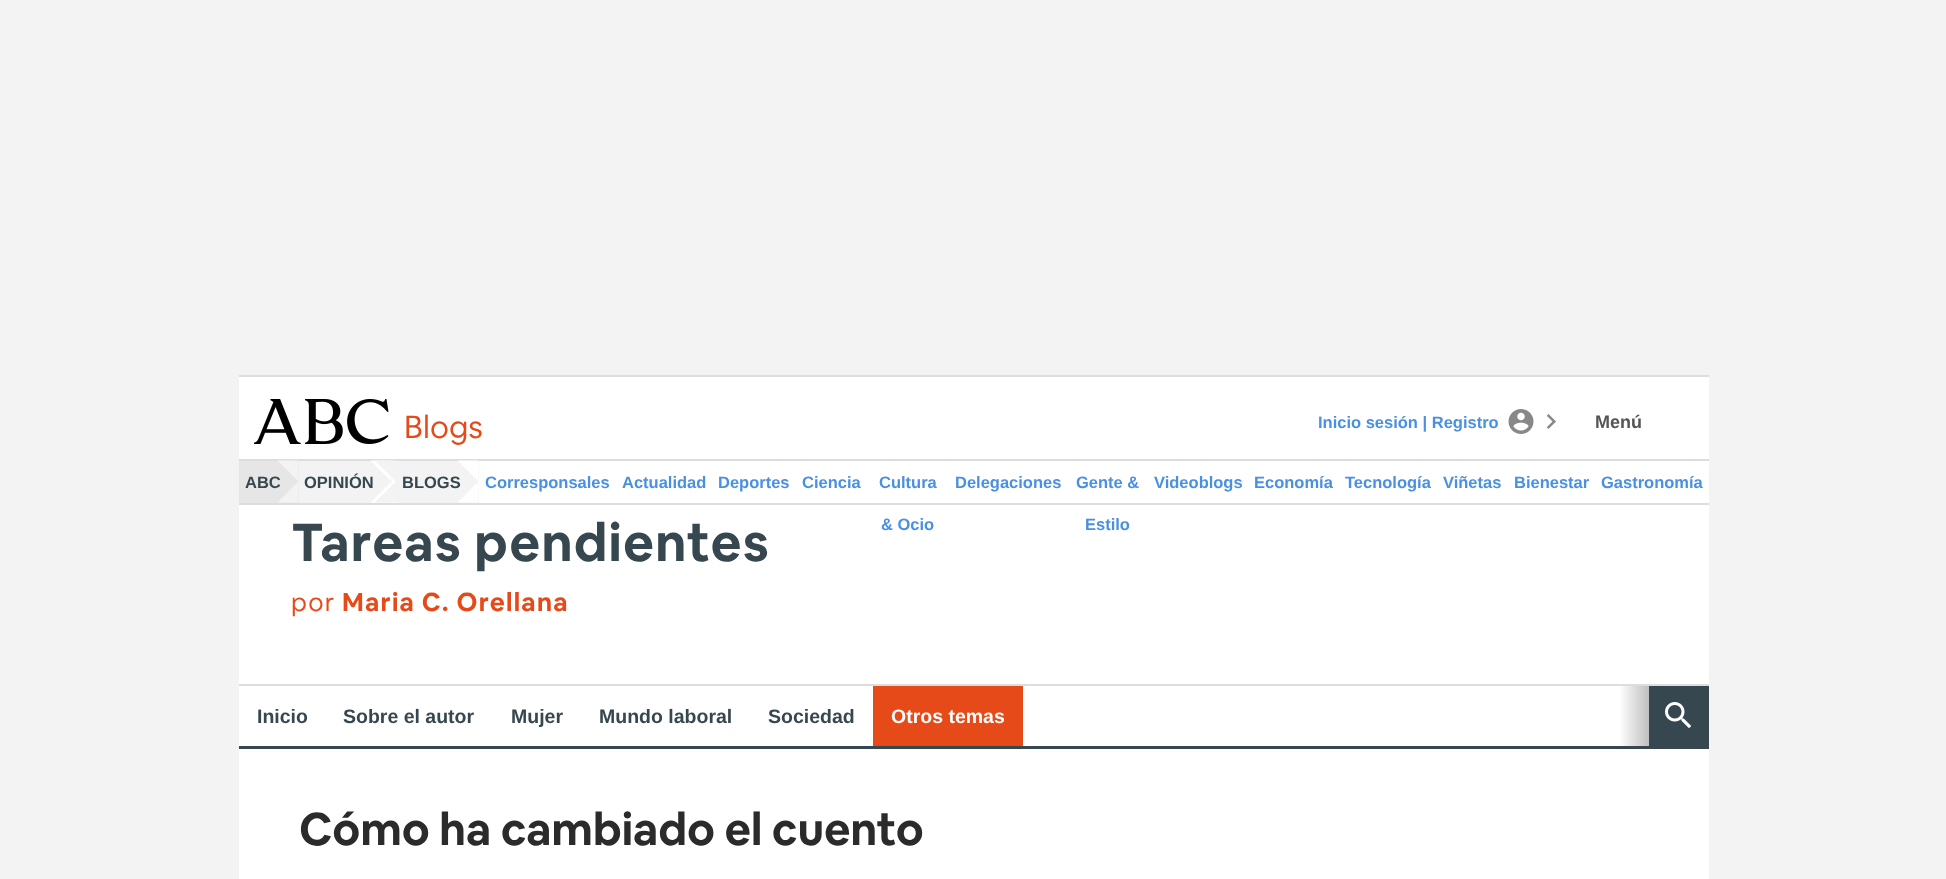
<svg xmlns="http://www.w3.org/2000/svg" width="1946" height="879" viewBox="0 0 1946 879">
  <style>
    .t1 { font: 31.5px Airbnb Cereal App; fill: #e64a19; }
    .t2 { font: bold 52.5px Airbnb Cereal App; letter-spacing: 1.25px; fill: #37474f; }
    .t3 { font: 25.5px Airbnb Cereal App; letter-spacing: 1.25px; fill: #e64a19; }
    .t4 { font: bold 25.5px Airbnb Cereal App; letter-spacing: 1.25px; fill: #e64a19; }
    .t5 { font: bold 19.5px Liberation Sans; fill: #37474f; }
    .t6 { font: bold 19.5px Liberation Sans; fill: #fff; }
    .t7 { font: bold 45px Airbnb Cereal App; fill: #2b2b2b; }
    .t8 { font: bold 16.5px Liberation Sans; fill: #4a90e2; }
    .t9 { font: bold 18px Liberation Sans; fill: #555; }
    .t10 { font: bold 16.5px Liberation Sans; fill: #37474f; }
  </style>
  <defs>
    <linearGradient id="g1" gradientUnits="userSpaceOnUse" x1="1619" y1="716" x2="1649" y2="716"><stop offset="0" stop-color="#fff"/><stop offset="1" stop-color="#bfbfbf"/></linearGradient>
  </defs>
  <rect width="100%" height="100%" fill="#f3f3f3"/>
  <rect x="239" y="505" width="1470" height="374" fill="#fff"/>
  <rect x="239" y="377" width="1470" height="82" fill="#fff"/>
  <text x="404" y="438" class="t1">Blogs</text>
  <text x="291" y="561" class="t2">Tareas pendientes</text>
  <text x="291" y="611" class="t3">por</text>
  <text x="342" y="611" class="t4">Maria C. Orellana</text>
  <rect x="239" y="684" width="1470" height="2" fill="#ddd"/>
  <rect x="239" y="746" width="1470" height="3" fill="#37474f"/>
  <text x="257" y="723" class="t5">Inicio</text>
  <text x="343" y="723" class="t5">Sobre el autor</text>
  <text x="511" y="723" class="t5">Mujer</text>
  <text x="599" y="723" class="t5">Mundo laboral</text>
  <text x="768" y="723" class="t5">Sociedad</text>
  <rect x="873" y="686" width="150" height="60" fill="#e64a19"/>
  <text x="891" y="723" class="t6">Otros temas</text>
  <rect x="1649" y="686" width="60" height="60" fill="#37474f"/>
  <rect x="1620" y="686" width="29" height="60" fill="url(#g1)"/>
  <image x="1665" y="702" width="27" height="27" href="images/1.png"/>
  <text x="299" y="845" class="t7">Cómo ha cambiado el cuento</text>
  <rect x="239" y="375" width="1470" height="2" fill="#ddd"/>
  <rect x="239" y="459" width="1470" height="2" fill="#ddd"/>
  <image x="254" y="399" width="135" height="45" href="images/2.png"/>
  <text x="1318" y="428" class="t8">Inicio sesión | Registro</text>
  <image x="1508" y="409" width="26" height="25" href="images/3.png"/>
  <image x="1546" y="414" width="10" height="15" href="images/4.png"/>
  <text x="1595" y="428" class="t9">Menú</text>
  <rect x="392" y="461" width="1317" height="42" fill="#fff"/>
  <rect x="239" y="503" width="1470" height="2" fill="#ddd"/>
  <rect x="239" y="461" width="60" height="42" fill="#e6e6e6"/>
  <path d="M298.5 481.5V502.5L288 492Z" fill="#f3f3f3"/>
  <text x="245" y="488" class="t10">ABC</text>
  <path d="M298.5 502.5H277.5L288 492ZM277.5 460.5H298.5L288 471Z" fill="#f3f3f3"/>
  <path d="M298.5 460.5V481.5L288 471Z" fill="#f3f3f3"/>
  <path d="M391.5 481.5V502.5L381 492Z" fill="#fff"/>
  <text x="304" y="488" class="t10">OPINIÓN</text>
  <path d="M391.5 502.5H370.5L381 492ZM370.5 460.5H391.5L381 471Z" fill="#fff"/>
  <path d="M391.5 460.5V481.5L381 471Z" fill="#fff"/>
  <path d="M396 481.5V502.5L385.5 492Z" fill="#f3f3f3"/>
  <path d="M396 502.5H375L385.5 492ZM375 460.5H396L385.5 471Z" fill="#f3f3f3"/>
  <path d="M396 460.5V481.5L385.5 471Z" fill="#f3f3f3"/>
  <rect x="396" y="461" width="83" height="42" fill="#f3f3f3"/>
  <path d="M478.5 481.5V502.5L468 492Z" fill="#fff"/>
  <text x="402" y="488" class="t10">BLOGS</text>
  <path d="M478.5 502.5H457.5L468 492ZM457.5 460.5H478.5L468 471Z" fill="#fff"/>
  <path d="M478.5 460.5V481.5L468 471Z" fill="#fff"/>
  <text x="485" y="488" class="t8">Corresponsales</text>
  <text x="622" y="488" class="t8">Actualidad</text>
  <text x="718" y="488" class="t8">Deportes</text>
  <text x="802" y="488" class="t8">Ciencia</text>
  <text x="879" y="488" class="t8">Cultura</text>
  <text x="881" y="530" class="t8">&amp; Ocio</text>
  <text x="955" y="488" class="t8">Delegaciones</text>
  <text x="1076" y="488" class="t8">Gente &amp;</text>
  <text x="1085" y="530" class="t8">Estilo</text>
  <text x="1154" y="488" class="t8">Videoblogs</text>
  <text x="1254" y="488" class="t8">Economía</text>
  <text x="1345" y="488" class="t8">Tecnología</text>
  <text x="1443" y="488" class="t8">Viñetas</text>
  <text x="1514" y="488" class="t8">Bienestar</text>
  <text x="1601" y="488" class="t8">Gastronomía</text>
</svg>
